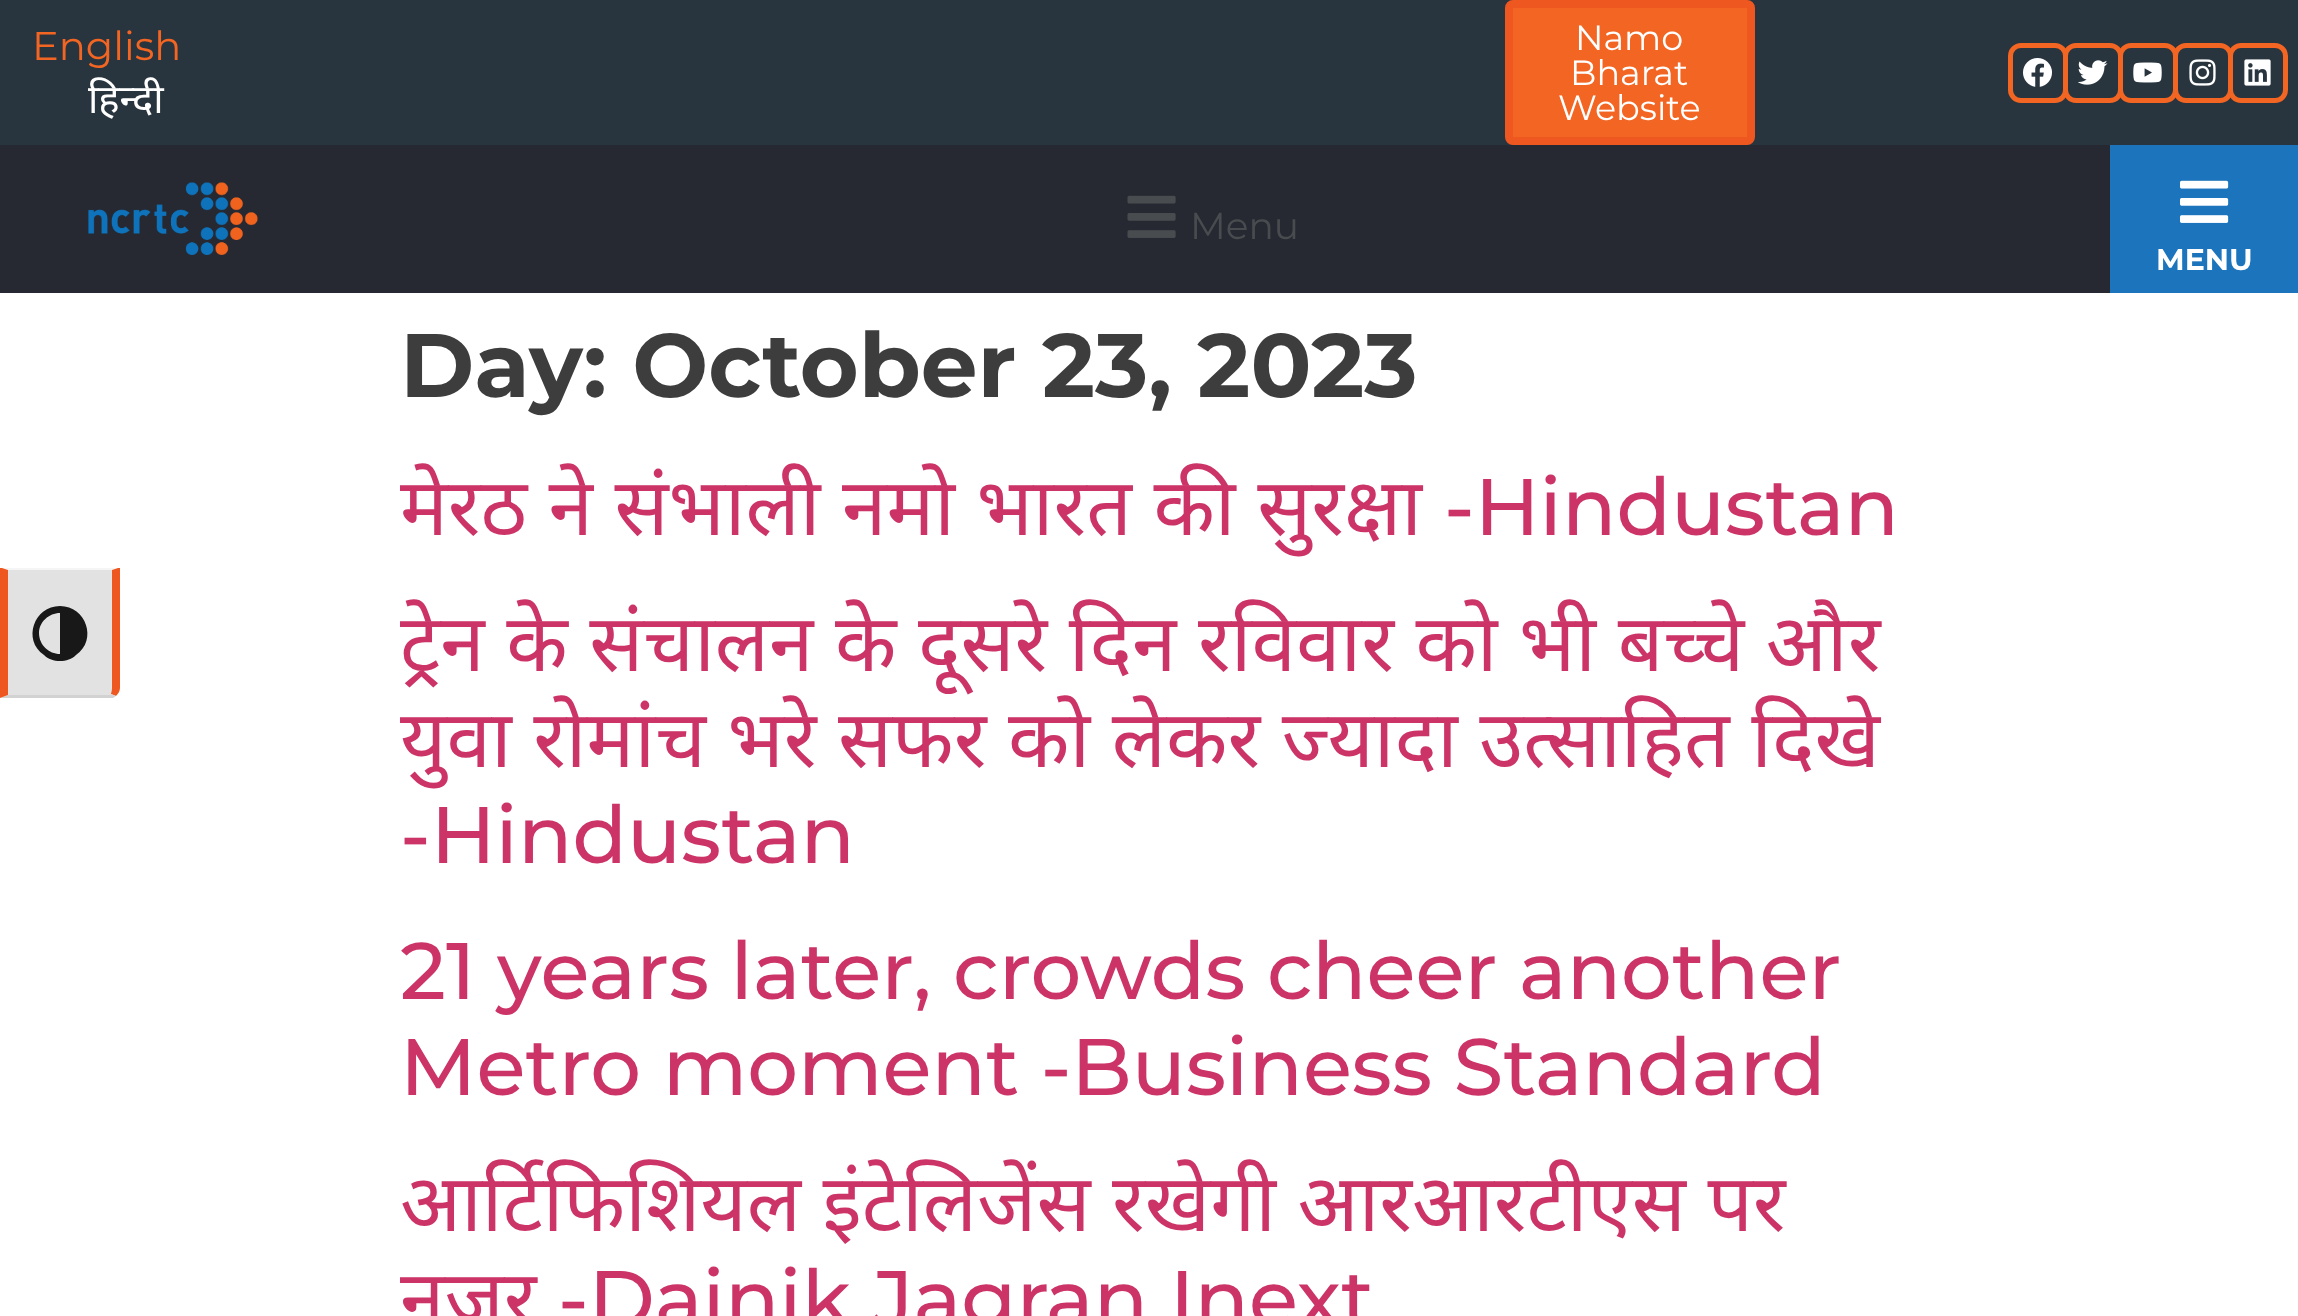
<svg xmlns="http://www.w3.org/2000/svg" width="2298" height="1316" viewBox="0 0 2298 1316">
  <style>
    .t1 { font: 40px Montserrat; fill: #f26522; }
    .t2 { font: 40px Noto Sans; fill: #fff; }
    .t3 { font: 35px Montserrat; fill: #fff; }
    .t4 { font: 37.5px Montserrat; fill: #494c4f; }
    .t5 { font: bold 30px Montserrat; fill: #fff; }
    .t6 { font: bold 90px Montserrat; fill: #3d3d3d; }
    .t7 { font: 80px Noto Sans; fill: #c36; }
    .t8 { font: 500 80px Montserrat; fill: #c36; }
  </style>
  <rect width="100%" height="100%" fill="#fff"/>
  <rect x="0" y="0" width="2298" height="145" fill="#28353e"/>
  <text x="32" y="60" class="t1">English</text>
  <text x="88" y="113" class="t2">हिन्दी</text>
  <rect x="1509" y="4" width="242" height="137" rx="4" fill="#f26522" stroke="#ee5820" stroke-width="8"/>
  <text x="1575" y="50" class="t3">Namo</text>
  <text x="1570" y="85" class="t3">Bharat</text>
  <text x="1558" y="120" class="t3">Website</text>
  <rect x="2010.5" y="45.5" width="55" height="55" rx="10.5" fill="none" stroke="#f26522" stroke-width="5"/>
  <image x="2023" y="58" width="29" height="29" href="images/1.png"/>
  <rect x="2065.5" y="45.5" width="55" height="55" rx="10.5" fill="none" stroke="#f26522" stroke-width="5"/>
  <image x="2078" y="60" width="30" height="25" href="images/2.png"/>
  <rect x="2120.5" y="45.5" width="55" height="55" rx="10.5" fill="none" stroke="#f26522" stroke-width="5"/>
  <image x="2133" y="62" width="29" height="21" href="images/3.png"/>
  <rect x="2175.5" y="45.5" width="55" height="55" rx="10.5" fill="none" stroke="#f26522" stroke-width="5"/>
  <image x="2189" y="59" width="27" height="27" href="images/4.png"/>
  <rect x="2230.5" y="45.5" width="55" height="55" rx="10.5" fill="none" stroke="#f26522" stroke-width="5"/>
  <image x="2244" y="59" width="27" height="27" href="images/5.png"/>
  <rect x="0" y="145" width="2110" height="148" fill="#262932"/>
  <image x="88" y="182" width="170" height="73" href="images/6.png"/>
  <image x="1127" y="195" width="49" height="43" href="images/7.png"/>
  <text x="1190" y="239" class="t4">Menu</text>
  <rect x="2110" y="145" width="188" height="148" fill="#1c75bc"/>
  <image x="2180" y="180" width="49" height="43" href="images/8.png"/>
  <text x="2156" y="270" class="t5">MENU</text>
  <path d="M8 570H112V688C112 692 111 695 110 695H8Z" fill="#e2e2e2"/>
  <path d="M8 570H112L118 568H2Z" fill="#f5f5f5"/>
  <path d="M120 688V568H118L112 570V688C112 691 111 693 111 694L116 696C118 694 120 691 120 688Z" fill="#ee5820"/>
  <path d="M113 698H0L8 695H110L111 694L116 696Z" fill="#d2d2d2"/>
  <path d="M0 698L8 695V570L2 568H0Z" fill="#ee5820"/>
  <path d="M60 606C34 606 22 640 44 655C48 659 54 661 60 661C66 661 72 659 76 655C98 640 86 606 60 606ZM39 633C39 622 49 613 60 613V654C49 654 39 645 39 633Z" fill="#181818"/>
  <text x="400" y="397" class="t6">Day: October 23, 2023</text>
  <text x="400" y="535" word-spacing="0.75" class="t7">मेरठ ने संभाली नमो भारत की सुरक्षा</text>
  <text x="1444" y="535" class="t8">-Hindustan</text>
  <text x="400" y="671" word-spacing="0.75" class="t7">ट्रेन के संचालन के दूसरे दिन रविवार को भी बच्चे और</text>
  <text x="400" y="767" word-spacing="0.75" class="t7">युवा रोमांच भरे सफर को लेकर ज्यादा उत्साहित दिखे</text>
  <text x="400" y="863" class="t8">-Hindustan</text>
  <text x="400" y="999" class="t8">21 years later, crowds cheer another</text>
  <text x="400" y="1095" class="t8">Metro moment -Business Standard</text>
  <text x="400" y="1231" word-spacing="0.75" class="t7">आर्टिफिशियल इंटेलिजेंस रखेगी आरआरटीएस पर</text>
  <text x="400" y="1327" class="t7">नजर</text>
  <text x="558" y="1327" class="t8">-Dainik Jagran Inext</text>
</svg>
